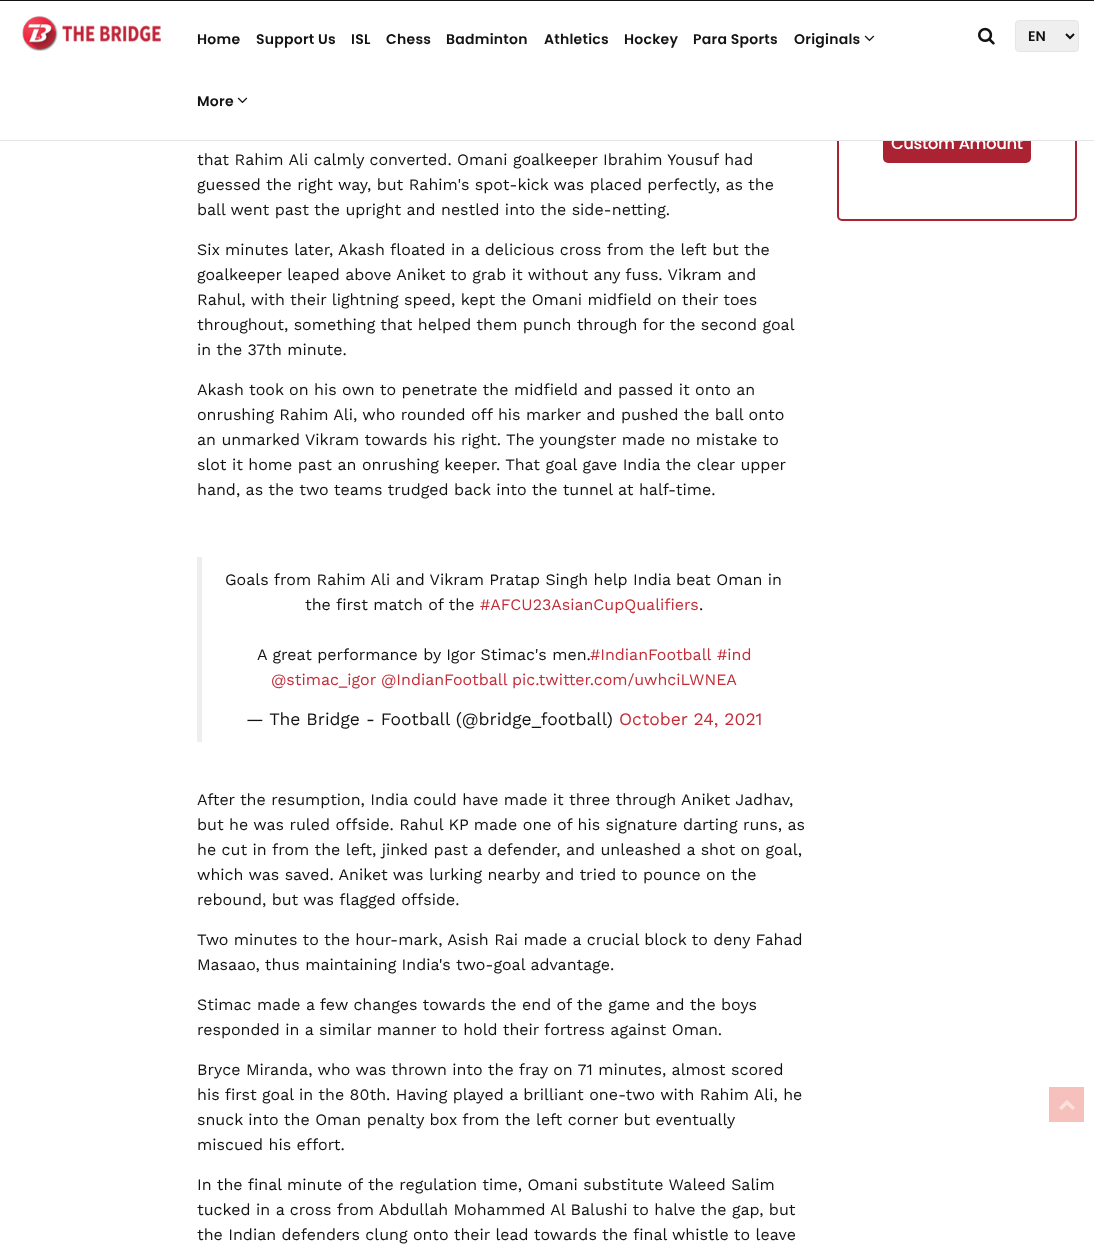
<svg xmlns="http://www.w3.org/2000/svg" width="1094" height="1252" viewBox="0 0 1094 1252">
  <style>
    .t1 { font: bold 16px Poppins; fill: #fff; }
    .t2 { font: 600 14px Poppins; letter-spacing: 0.25px; fill: #121212; }
    .t3 { font: 600 14px Poppins; fill: #121212; }
    .t4 { font: 16px Work Sans; fill: #121212; }
    .t5 { font: 16px Work Sans; fill: #c22d38; }
    .t6 { font: 17.5px Work Sans; fill: #121212; }
    .t7 { font: 17.5px Work Sans; fill: #c22d38; }
  </style>
  <rect width="100%" height="100%" fill="#fff"/>
  <rect x="838" y="-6" width="238" height="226" rx="4" fill="none" stroke="#ab2233" stroke-width="2"/>
  <rect x="0" y="0" width="1094" height="1" fill="#121212"/>
  <rect x="883" y="125" width="148" height="38" rx="5" fill="#ab2233"/>
  <rect x="837" y="1" width="240" height="139" fill="#fff"/>
  <text x="891" y="149" class="t1">Custom Amount</text>
  <rect x="0" y="140" width="1094" height="1" fill="#e5e5e5"/>
  <image x="22" y="16" width="139" height="35" href="images/1.png"/>
  <text x="197" y="44" class="t2">Home</text>
  <text x="256" y="44" class="t2">Support Us</text>
  <text x="351" y="44" class="t2">ISL</text>
  <text x="386" y="44" class="t2">Chess</text>
  <text x="446" y="44" class="t2">Badminton</text>
  <text x="544" y="44" class="t2">Athletics</text>
  <text x="624" y="44" class="t2">Hockey</text>
  <text x="693" y="44" class="t2">Para Sports</text>
  <text x="794" y="44" class="t2">Originals</text>
  <image x="864" y="35" width="11" height="7" href="images/2.png"/>
  <text x="197" y="106" class="t2">More</text>
  <image x="237" y="97" width="11" height="7" href="images/2.png"/>
  <image x="978" y="27" width="17" height="18" href="images/3.png"/>
  <rect x="1015.5" y="20.5" width="63" height="31" rx="3.5" fill="#efefef" stroke="#e5e5e5"/>
  <path d="M1066 34L1070 38L1074 34" fill="none" stroke="#121212" stroke-width="2"/>
  <text x="1028" y="41" class="t3">EN</text>
  <text x="197" y="165" class="t4">that Rahim Ali calmly converted. Omani goalkeeper Ibrahim Yousuf had</text>
  <text x="197" y="190" class="t4">guessed the right way, but Rahim's spot-kick was placed perfectly, as the</text>
  <text x="197" y="215" class="t4">ball went past the upright and nestled into the side-netting.</text>
  <text x="197" y="255" class="t4">Six minutes later, Akash floated in a delicious cross from the left but the</text>
  <text x="197" y="280" class="t4">goalkeeper leaped above Aniket to grab it without any fuss. Vikram and</text>
  <text x="197" y="305" class="t4">Rahul, with their lightning speed, kept the Omani midfield on their toes</text>
  <text x="197" y="330" class="t4">throughout, something that helped them punch through for the second goal</text>
  <text x="197" y="355" class="t4">in the 37th minute.</text>
  <text x="197" y="395" class="t4">Akash took on his own to penetrate the midfield and passed it onto an</text>
  <text x="197" y="420" class="t4">onrushing Rahim Ali, who rounded off his marker and pushed the ball onto</text>
  <text x="197" y="445" class="t4">an unmarked Vikram towards his right. The youngster made no mistake to</text>
  <text x="197" y="470" class="t4">slot it home past an onrushing keeper. That goal gave India the clear upper</text>
  <text x="197" y="495" class="t4">hand, as the two teams trudged back into the tunnel at half-time.</text>
  <rect x="197" y="557" width="5" height="185" fill="#eee"/>
  <text x="225" y="585" class="t4">Goals from Rahim Ali and Vikram Pratap Singh help India beat Oman in</text>
  <text x="305" y="610" class="t4">the first match of the</text>
  <text x="480" y="610" class="t5">#AFCU23AsianCupQualifiers</text>
  <text x="699" y="610" class="t4">.</text>
  <text x="257" y="660" class="t4">A great performance by Igor Stimac's men.</text>
  <text x="590" y="660" class="t5">#IndianFootball</text>
  <text x="717" y="660" class="t5">#ind</text>
  <text x="271" y="685" class="t5">@stimac_igor</text>
  <text x="381" y="685" class="t5">@IndianFootball</text>
  <text x="512" y="685" class="t5">pic.twitter.com/uwhciLWNEA</text>
  <text x="246" y="725" class="t6">— The Bridge - Football (@bridge_football)</text>
  <text x="619" y="725" class="t7">October 24, 2021</text>
  <text x="197" y="805" class="t4">After the resumption, India could have made it three through Aniket Jadhav,</text>
  <text x="197" y="830" class="t4">but he was ruled offside. Rahul KP made one of his signature darting runs, as</text>
  <text x="197" y="855" class="t4">he cut in from the left, jinked past a defender, and unleashed a shot on goal,</text>
  <text x="197" y="880" class="t4">which was saved. Aniket was lurking nearby and tried to pounce on the</text>
  <text x="197" y="905" class="t4">rebound, but was flagged offside.</text>
  <text x="197" y="945" class="t4">Two minutes to the hour-mark, Asish Rai made a crucial block to deny Fahad</text>
  <text x="197" y="970" class="t4">Masaao, thus maintaining India's two-goal advantage.</text>
  <text x="197" y="1010" class="t4">Stimac made a few changes towards the end of the game and the boys</text>
  <text x="197" y="1035" class="t4">responded in a similar manner to hold their fortress against Oman.</text>
  <text x="197" y="1075" class="t4">Bryce Miranda, who was thrown into the fray on 71 minutes, almost scored</text>
  <text x="197" y="1100" class="t4">his first goal in the 80th. Having played a brilliant one-two with Rahim Ali, he</text>
  <text x="197" y="1125" class="t4">snuck into the Oman penalty box from the left corner but eventually</text>
  <text x="197" y="1150" class="t4">miscued his effort.</text>
  <text x="197" y="1190" class="t4">In the final minute of the regulation time, Omani substitute Waleed Salim</text>
  <text x="197" y="1215" class="t4">tucked in a cross from Abdullah Mohammed Al Balushi to halve the gap, but</text>
  <text x="197" y="1240" class="t4">the Indian defenders clung onto their lead towards the final whistle to leave</text>
  <rect x="1049" y="1087" width="35" height="35" fill="#f6c1bc"/>
  <image x="1059" y="1100" width="16" height="10" href="images/4.png"/>
</svg>
